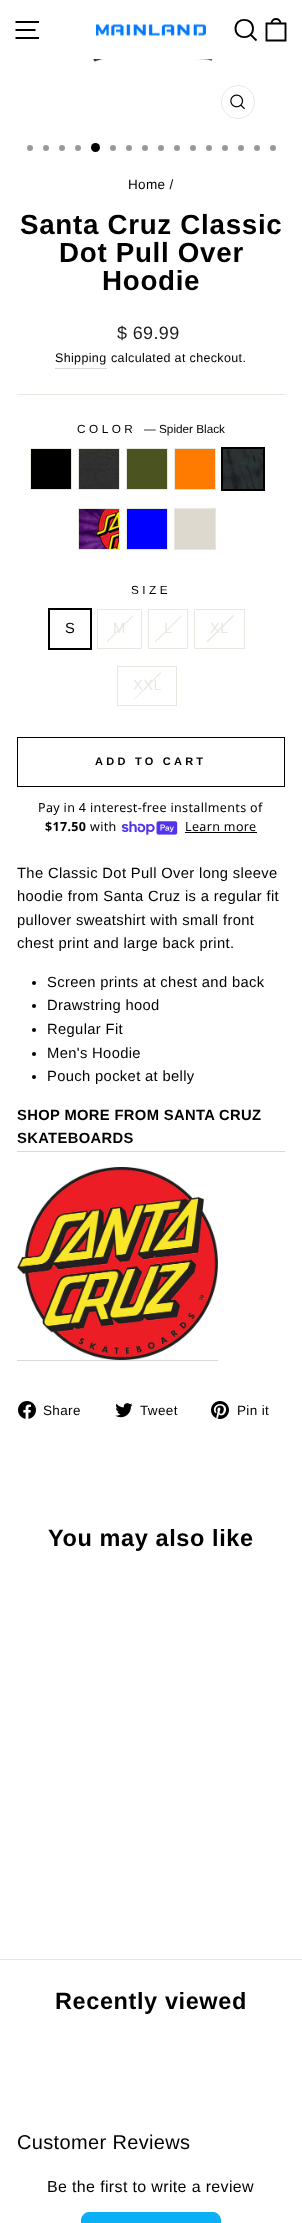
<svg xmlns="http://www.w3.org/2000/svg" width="302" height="2223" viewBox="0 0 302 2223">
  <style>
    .t1 { font: 13.5px Arimo; letter-spacing: 0.35px; fill: #000; }
    .t2 { font: bold 27.75px Arimo; letter-spacing: 0.7px; fill: #000; }
    .t3 { font: 18px Arimo; letter-spacing: 0.35px; fill: #1c1d1d; }
    .t4 { font: 12.5px Arimo; letter-spacing: 0.35px; fill: #000; }
    .t5 { font: 11.75px Arimo; letter-spacing: 3.5px; fill: #000; }
    .t6 { font: 11.75px Arimo; fill: #000; }
    .t7 { font: 14.75px Arimo; letter-spacing: 0.35px; fill: #000; }
    .t8 { font: 14.75px Arimo; letter-spacing: 0.35px; fill: #e8e8e1; }
    .t9 { font: bold 11px Arimo; letter-spacing: 3.25px; fill: #000; }
    .t10 { font: 12.5px Noto Sans; letter-spacing: 0.35px; fill: #000; }
    .t11 { font: bold 12.5px Noto Sans; letter-spacing: 0.35px; fill: #000; }
    .t12 { font: bold 14.75px Arimo; letter-spacing: 0.35px; fill: #000; }
    .t13 { font: bold 23.5px Arimo; letter-spacing: 0.6px; fill: #000; }
    .t14 { font: 20px Arimo; letter-spacing: 0.35px; fill: #000; }
    .t15 { font: 16px Arimo; letter-spacing: 0.35px; fill: #000; }
  </style>
  <rect width="100%" height="100%" fill="#fff"/>
  <image x="0" y="59" width="34" height="70" href="images/2.png"/>
  <image x="38" y="59" width="227" height="70" href="images/3.png"/>
  <image x="268" y="59" width="34" height="70" href="images/5.png"/>
  <rect x="0" y="0" width="302" height="59" fill="#00000033" filter="blur(0.5px)"/>
  <rect x="0" y="0" width="302" height="59" fill="#fff"/>
  <path d="M15.5 22H39M15.5 30H35.5M15.5 38H39" fill="none" stroke="#000" stroke-width="1.9"/>
  <image x="96" y="24" width="110" height="12" href="images/1.png"/>
  <path d="M253 28.5C253 40 235.5 40 235.5 28.5C235.5 17 253 17 253 28.5ZM256.5 40.5L250.5 34.5M266.5 23.5H285.5V40.5H266.5ZM271.5 23.5C271.5 17.5 280.5 17.5 280.5 23.5" fill="none" stroke="#000" stroke-width="1.9"/>
  <circle cx="238" cy="102" r="16.5" fill="none" stroke="#e8e8e1"/>
  <image x="230" y="94" width="15" height="16" href="images/4.png"/>
  <circle cx="30" cy="148" r="3" fill="#999"/>
  <circle cx="46" cy="148" r="3" fill="#999"/>
  <circle cx="62" cy="148" r="3" fill="#999"/>
  <circle cx="78" cy="148" r="3" fill="#999"/>
  <circle cx="95.5" cy="147.5" r="4.5" fill="#000"/>
  <circle cx="113" cy="148" r="3" fill="#999"/>
  <circle cx="129" cy="148" r="3" fill="#999"/>
  <circle cx="145" cy="148" r="3" fill="#999"/>
  <circle cx="161" cy="148" r="3" fill="#999"/>
  <circle cx="177" cy="148" r="3" fill="#999"/>
  <circle cx="193" cy="148" r="3" fill="#999"/>
  <circle cx="209" cy="148" r="3" fill="#999"/>
  <circle cx="225" cy="148" r="3" fill="#999"/>
  <circle cx="241" cy="148" r="3" fill="#999"/>
  <circle cx="257" cy="148" r="3" fill="#999"/>
  <circle cx="273" cy="148" r="3" fill="#999"/>
  <text x="128" y="189" class="t1">Home /</text>
  <text x="20" y="234" class="t2">Santa Cruz Classic</text>
  <text x="59" y="262" class="t2">Dot Pull Over</text>
  <text x="102" y="290" class="t2">Hoodie</text>
  <text x="117" y="339" class="t3">$ 69.99</text>
  <rect x="55" y="368" width="52" height="1" fill="#d9d9d9"/>
  <text x="55" y="362" class="t4">Shipping</text>
  <text x="111" y="362" class="t4">calculated at checkout.</text>
  <rect x="17" y="394" width="268" height="1" fill="#e8e8e1"/>
  <text x="77" y="433" class="t5">COLOR</text>
  <text x="144" y="433" class="t6">— Spider Black</text>
  <rect x="30.5" y="448.5" width="41" height="41" fill="none" stroke="#e8e8e1"/>
  <rect x="31" y="449" width="40" height="40" fill="#000"/>
  <rect x="78.5" y="448.5" width="41" height="41" fill="none" stroke="#e8e8e1"/>
  <image x="79" y="449" width="40" height="40" href="images/6.png"/>
  <rect x="126.5" y="448.5" width="41" height="41" fill="none" stroke="#e8e8e1"/>
  <rect x="127" y="449" width="40" height="40" fill="#4b5320"/>
  <rect x="174.5" y="448.5" width="41" height="41" fill="none" stroke="#e8e8e1"/>
  <rect x="175" y="449" width="40" height="40" fill="#ff7b00"/>
  <rect x="222" y="448" width="42" height="42" fill="none" stroke="#000" stroke-width="2"/>
  <image x="223" y="449" width="40" height="40" href="images/7.png"/>
  <rect x="78.5" y="508.5" width="41" height="41" fill="none" stroke="#e8e8e1"/>
  <image x="79" y="509" width="40" height="40" href="images/8.png"/>
  <rect x="126.5" y="508.5" width="41" height="41" fill="none" stroke="#e8e8e1"/>
  <rect x="127" y="509" width="40" height="40" fill="#00f"/>
  <rect x="174.5" y="508.5" width="41" height="41" fill="none" stroke="#e8e8e1"/>
  <rect x="175" y="509" width="40" height="40" fill="#ded9ce"/>
  <text x="131" y="594" class="t5">SIZE</text>
  <rect x="49" y="609" width="42" height="40" fill="none" stroke="#000" stroke-width="2"/>
  <text x="65" y="633" class="t7">S</text>
  <rect x="97.5" y="609.5" width="44" height="39" fill="none" stroke="#e8e8e1"/>
  <path d="M133 615L133.5 616L107 642.5L106.5 641.5Z" fill="#e8e8e1"/>
  <text x="113" y="633" class="t8">M</text>
  <rect x="148.5" y="609.5" width="39" height="39" fill="none" stroke="#e8e8e1"/>
  <path d="M181.5 615L182 616L155.5 642.5L155 641.5Z" fill="#e8e8e1"/>
  <text x="164" y="633" class="t8">L</text>
  <rect x="194.5" y="609.5" width="50" height="39" fill="none" stroke="#e8e8e1"/>
  <path d="M233 615L234 616L207.5 642.5L206.5 641.5Z" fill="#e8e8e1"/>
  <text x="210" y="633" class="t8">XL</text>
  <rect x="117.5" y="666.5" width="59" height="39" fill="none" stroke="#e8e8e1"/>
  <path d="M160.5 672L161 673L134.5 699.5L134 699Z" fill="#e8e8e1"/>
  <text x="133" y="690" class="t8">XXL</text>
  <rect x="17.5" y="737.5" width="267" height="49" fill="none" stroke="#000"/>
  <text x="95" y="765" class="t9">ADD TO CART</text>
  <text x="38" y="812" class="t10">Pay in 4 interest-free installments of</text>
  <text x="45" y="831" class="t11">$17.50</text>
  <text x="90" y="831" class="t10">with</text>
  <image x="121" y="821" width="57" height="14" href="images/9.png"/>
  <text x="185" y="831" class="t10">Learn more</text>
  <rect x="185" y="832" width="72" height="1" fill="#000"/>
  <text x="17" y="878" class="t7">The Classic Dot Pull Over long sleeve</text>
  <text x="17" y="901" class="t7">hoodie from Santa Cruz is a regular fit</text>
  <text x="17" y="925" class="t7">pullover sweatshirt with small front</text>
  <text x="17" y="948" class="t7">chest print and large back print.</text>
  <circle cx="34" cy="983" r="2" fill="#000"/>
  <text x="47" y="987" class="t7">Screen prints at chest and back</text>
  <circle cx="34" cy="1006" r="2" fill="#000"/>
  <text x="47" y="1010" class="t7">Drawstring hood</text>
  <circle cx="34" cy="1030" r="2" fill="#000"/>
  <text x="47" y="1034" class="t7">Regular Fit</text>
  <circle cx="34" cy="1054" r="2" fill="#000"/>
  <text x="47" y="1058" class="t7">Men's Hoodie</text>
  <circle cx="34" cy="1077" r="2" fill="#000"/>
  <text x="47" y="1081" class="t7">Pouch pocket at belly</text>
  <rect x="17" y="1151" width="268" height="1" fill="#d9d9d9"/>
  <text x="17" y="1120" class="t12">SHOP MORE FROM SANTA CRUZ</text>
  <text x="17" y="1143" class="t12">SKATEBOARDS</text>
  <rect x="17" y="1360" width="201" height="1" fill="#d9d9d9"/>
  <image x="17" y="1167" width="201" height="193" href="images/10.png"/>
  <image x="18" y="1401" width="18" height="18" href="images/11.png"/>
  <text x="43" y="1415" class="t1">Share</text>
  <image x="115" y="1403" width="18" height="15" href="images/12.png"/>
  <text x="140" y="1415" class="t1">Tweet</text>
  <image x="211" y="1401" width="18" height="18" href="images/13.png"/>
  <text x="237" y="1415" class="t1">Pin it</text>
  <text x="48" y="1546" class="t13">You may also like</text>
  <rect x="0" y="1959" width="302" height="1" fill="#e8e8e1"/>
  <text x="55" y="2009" class="t13">Recently viewed</text>
  <text x="17" y="2149" class="t14">Customer Reviews</text>
  <text x="47" y="2192" class="t15">Be the first to write a review</text>
  <rect x="81.5" y="2212.5" width="139" height="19" rx="7.5" fill="#0aaff5" stroke="#0aaff5"/>
</svg>
